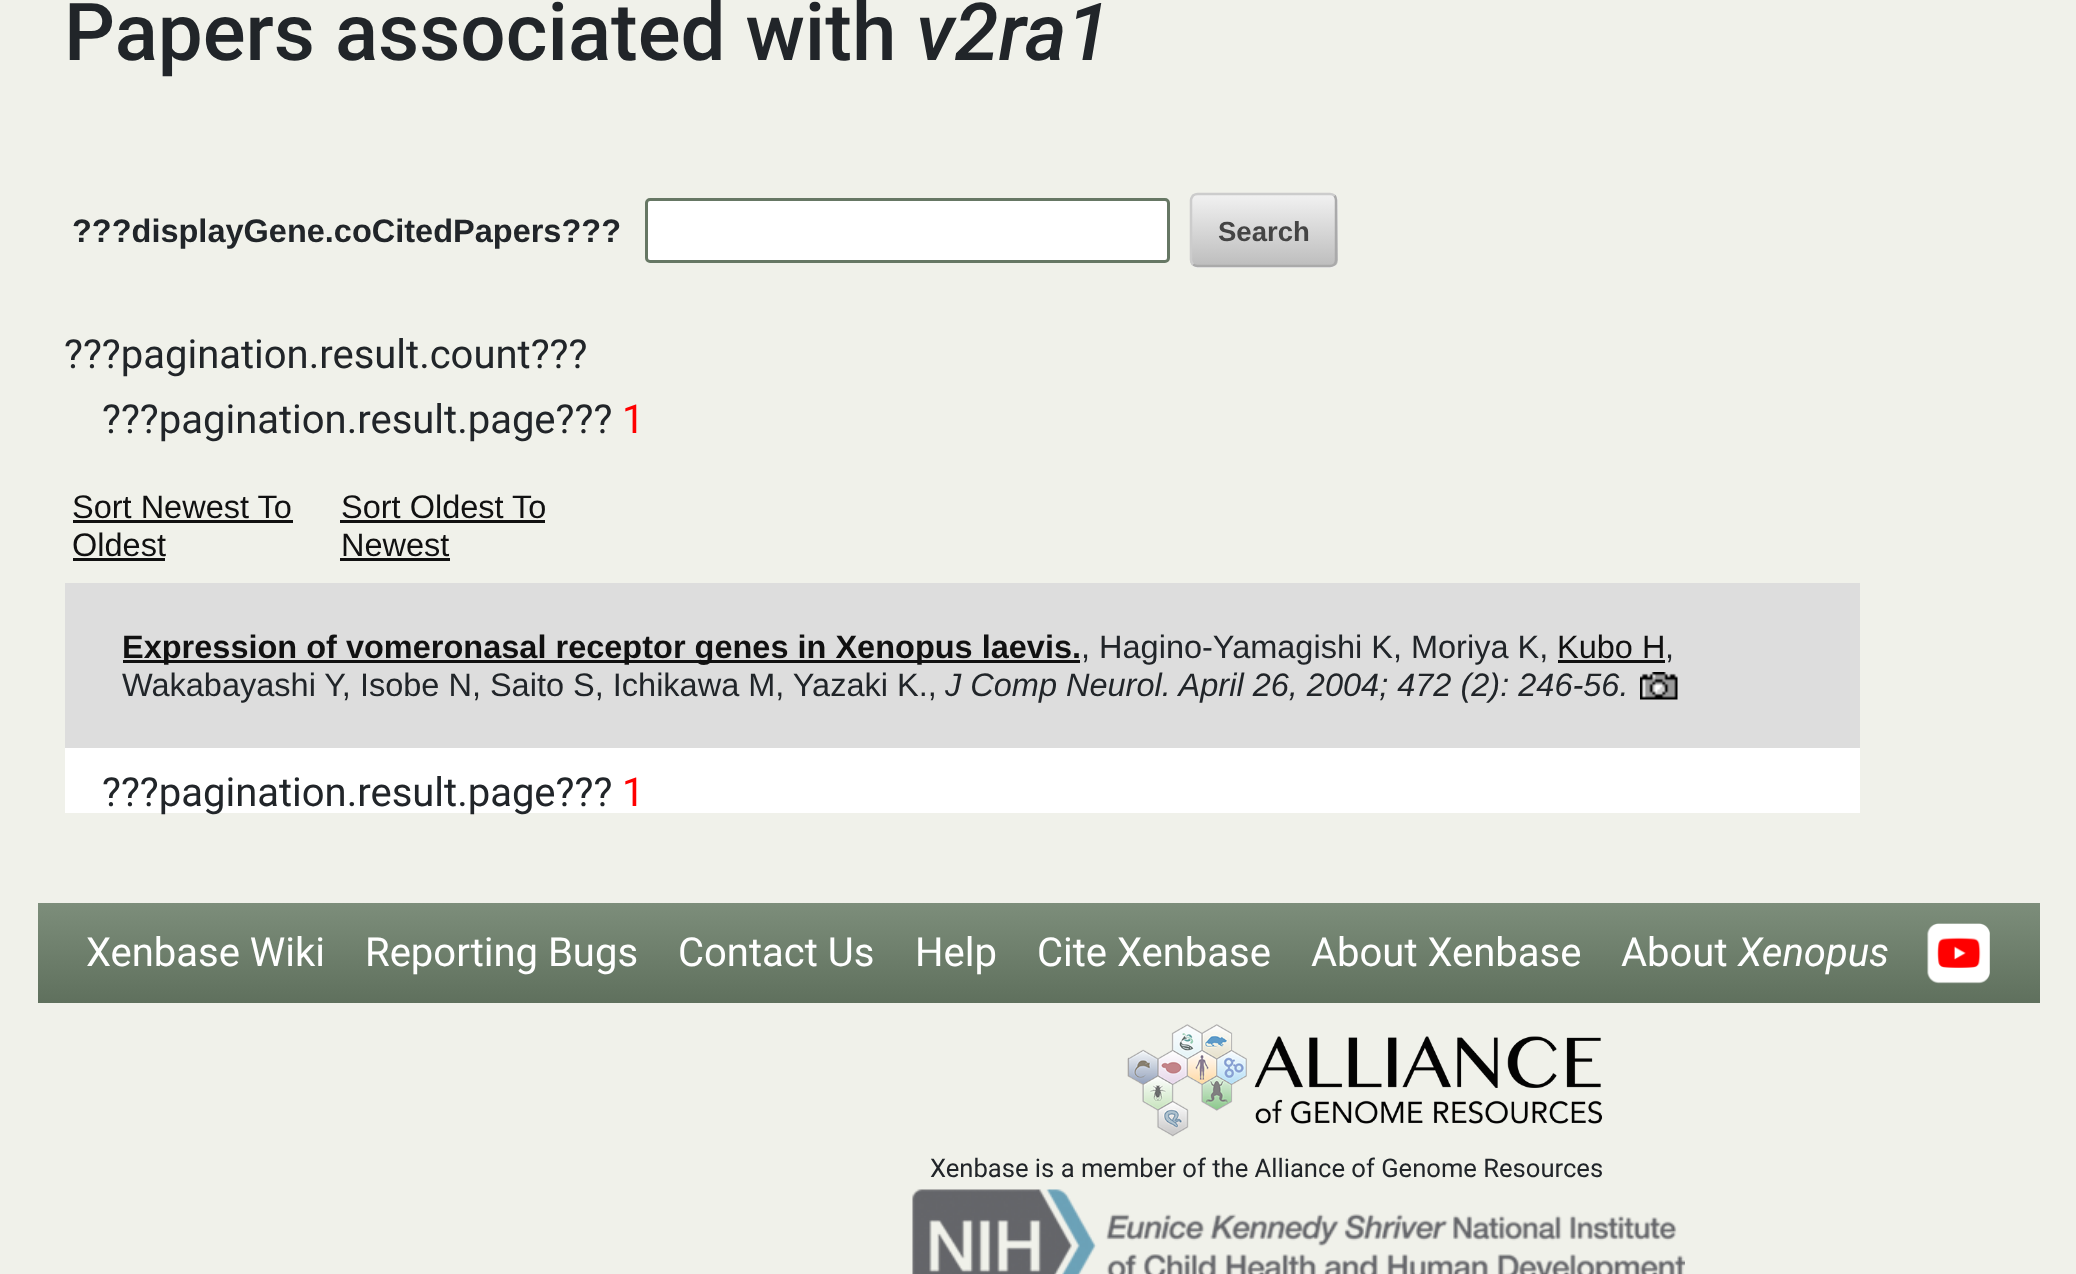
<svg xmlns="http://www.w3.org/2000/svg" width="2076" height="1274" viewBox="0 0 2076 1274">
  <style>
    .t1 { font: 500 80px Roboto; fill: #212529; }
    .t2 { font: italic 500 80px Roboto; fill: #212529; }
    .t3 { font: bold 32.5px Liberation Sans; fill: #212529; }
    .t4 { font: bold 27.5px Liberation Sans; fill: #444; }
    .t5 { font: 40px Roboto; fill: #212529; }
    .t6 { font: 40px Roboto; fill: #f00; }
    .t7 { font: 32.5px Liberation Sans; fill: #111; }
    .t8 { font: bold 32.5px Liberation Sans; fill: #111; }
    .t9 { font: 32.5px Liberation Sans; fill: #212529; }
    .t10 { font: italic 32.5px Liberation Sans; fill: #212529; }
    .t11 { font: 40px Roboto; fill: #fff; }
    .t12 { font: italic 40px Roboto; fill: #fff; }
    .t13 { font: 25.6px Roboto; fill: #212529; }
  </style>
  <defs>
    <clipPath id="clip1"><rect x="1190" y="193" width="148" height="75" rx="8"/></clipPath>
    <linearGradient id="g1" gradientUnits="userSpaceOnUse" x1="1264" y1="195" x2="1264" y2="265"><stop offset="0" stop-color="#f1f1f1"/><stop offset="1" stop-color="#bebebe"/></linearGradient>
    <linearGradient id="g2" gradientUnits="userSpaceOnUse" x1="1264" y1="265" x2="1264" y2="335"><stop offset="0" stop-color="#f1f1f1"/><stop offset="1" stop-color="#bebebe"/></linearGradient>
    <linearGradient id="g3" gradientUnits="userSpaceOnUse" x1="1039" y1="902" x2="1039" y2="1003"><stop offset="0" stop-color="#7d8e7b"/><stop offset="1" stop-color="#5f705d"/></linearGradient>
  </defs>
  <rect width="100%" height="100%" fill="#f0f1ea"/>
  <text x="64" y="60" class="t1">Papers associated with</text>
  <text x="916" y="60" class="t2">v2ra1</text>
  <text x="72" y="242" class="t3">???displayGene.coCitedPapers???</text>
  <rect x="646.5" y="199.5" width="522" height="62" rx="3.5" fill="#fff" stroke="#667764" stroke-width="3"/>
  <g clip-path="url(#clip1)">
    <rect x="1190" y="195" width="148" height="70" fill="url(#g1)"/>
    <rect x="1190" y="265" width="148" height="3" fill="url(#g2)"/>
  </g>
  <path d="M1334.5 195.5C1335.5 197 1336 198.5 1336 200V260C1336 261.5 1335.5 263 1334.5 264.5C1333 265.5 1331.5 266 1330 266H1197.5C1196 266 1194.5 265.5 1193 264.5" fill="none" stroke="#aaa" stroke-width="2.5"/>
  <path d="M1193 264.5C1192 263 1191 261.5 1191 260V200C1191 198.5 1192 197 1193 195.5C1194.5 194.5 1196 194 1197.5 194H1330C1331.5 194 1333 194.5 1334.5 195.5" fill="none" stroke="#ccc" stroke-width="2.5"/>
  <text x="1218" y="241" class="t4">Search</text>
  <text x="64" y="368" class="t5">???pagination.result.count???</text>
  <text x="102" y="433" class="t5">???pagination.result.page???</text>
  <text x="622" y="433" class="t6">1</text>
  <text x="72" y="518" class="t7">Sort Newest To</text>
  <rect x="73" y="520" width="220" height="3" fill="#111"/>
  <text x="72" y="556" class="t7">Oldest</text>
  <rect x="73" y="558" width="92" height="3" fill="#111"/>
  <text x="341" y="518" class="t7">Sort Oldest To</text>
  <rect x="340" y="520" width="205" height="3" fill="#111"/>
  <text x="341" y="556" class="t7">Newest</text>
  <rect x="340" y="558" width="110" height="3" fill="#111"/>
  <rect x="65" y="583" width="1795" height="165" fill="#ddd"/>
  <rect x="123" y="660" width="957" height="3" fill="#111"/>
  <text x="122" y="658" class="t8">Expression of vomeronasal receptor genes in Xenopus laevis.</text>
  <text x="1081" y="658" class="t9">, Hagino-Yamagishi K, Moriya K,</text>
  <text x="1557" y="658" class="t7">Kubo H</text>
  <rect x="1558" y="660" width="107" height="3" fill="#111"/>
  <text x="1665" y="658" class="t9">,</text>
  <text x="122" y="696" class="t9">Wakabayashi Y, Isobe N, Saito S, Ichikawa M, Yazaki K.,</text>
  <text x="945" y="696" class="t10">J Comp Neurol. April 26, 2004; 472 (2): 246-56.</text>
  <image x="1640" y="672" width="38" height="28" href="images/1.png"/>
  <rect x="65" y="748" width="1795" height="65" fill="#fff"/>
  <text x="102" y="806" class="t5">???pagination.result.page???</text>
  <text x="622" y="806" class="t6">1</text>
  <rect x="38" y="903" width="2002" height="100" fill="url(#g3)"/>
  <text x="86" y="966" class="t11">Xenbase Wiki</text>
  <text x="365" y="966" class="t11">Reporting Bugs</text>
  <text x="678" y="966" class="t11">Contact Us</text>
  <text x="915" y="966" class="t11">Help</text>
  <text x="1037" y="966" class="t11">Cite Xenbase</text>
  <text x="1311" y="966" class="t11">About Xenbase</text>
  <text x="1621" y="966" class="t11">About</text>
  <text x="1738" y="966" class="t12">Xenopus</text>
  <image x="1927" y="923" width="63" height="61" href="images/2.png"/>
  <image x="1127" y="1024" width="476" height="113" href="images/3.png"/>
  <text x="930" y="1177" class="t13">Xenbase is a member of the Alliance of Genome Resources</text>
  <image x="912" y="1189" width="773" height="85" href="images/4.png"/>
</svg>
